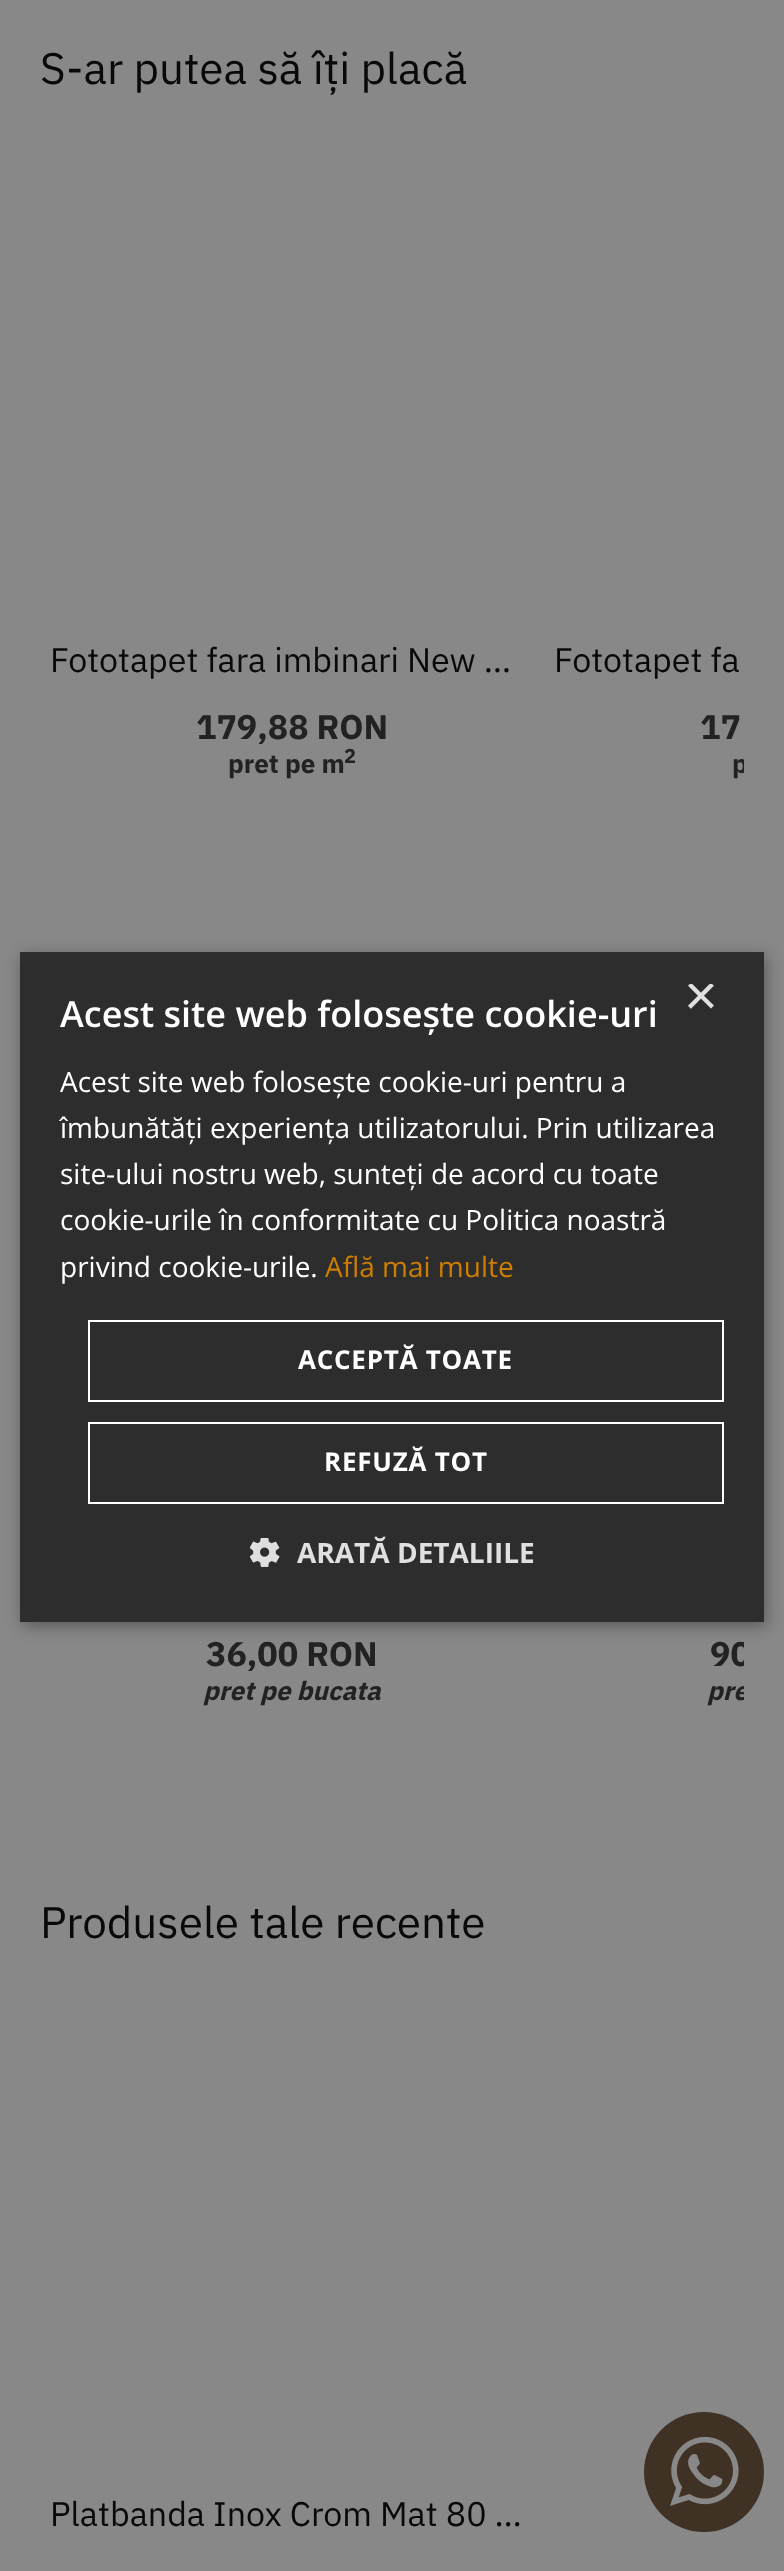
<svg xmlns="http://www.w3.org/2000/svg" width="784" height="2571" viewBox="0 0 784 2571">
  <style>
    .t1 { font: 44px IBM Plex Sans; fill: #090909; }
    .t2 { font: 34px IBM Plex Sans; fill: #090909; }
    .t3 { font: bold 34px IBM Plex Sans; fill: #222; }
    .t4 { font: bold 26px IBM Plex Sans; fill: #222; }
    .t5 { font: bold 20px IBM Plex Sans; fill: #222; }
    .t6 { font: italic bold 26px IBM Plex Sans; fill: #222; }
    .t7 { font: 58px Liberation Sans; fill: #e0e0e0; }
    .t8 { font: 600 36px Open Sans; fill: #fff; }
    .t9 { font: 28px Open Sans; fill: #fff; }
    .t10 { font: 28px Open Sans; fill: #ce7e00; }
    .t11 { font: bold 26px Open Sans; letter-spacing: 0.75px; fill: #fff; }
    .t12 { font: bold 28px Open Sans; fill: #e0e0e0; }
  </style>
  <defs>
    <clipPath id="clip1"><rect x="544" y="124" width="200" height="664"/></clipPath>
    <clipPath id="clip2"><rect x="544" y="1052" width="200" height="664"/></clipPath>
    <clipPath id="clip3"><rect x="684" y="984" width="30" height="30"/></clipPath>
  </defs>
  <rect width="100%" height="100%" fill="#888"/>
  <text x="40" y="84" class="t1">S-ar putea să îți placă</text>
  <text x="50" y="672" class="t2">Fototapet fara imbinari New …</text>
  <text x="196" y="739" class="t3">179,88 RON</text>
  <text x="228" y="773" class="t4">pret pe m</text>
  <text x="344" y="763" class="t5">2</text>
  <text x="554" y="672" class="t2">Fototapet fa</text>
  <text x="700" y="739" class="t3">17</text>
  <g clip-path="url(#clip1)">
    <text x="732" y="773" class="t4">p</text>
  </g>
  <text x="206" y="1666" class="t3">36,00 RON</text>
  <text x="203" y="1700" class="t6">pret pe bucata</text>
  <g clip-path="url(#clip2)">
    <text x="710" y="1666" class="t3">90</text>
    <text x="707" y="1700" class="t6">pre</text>
  </g>
  <text x="40" y="1938" class="t1">Produsele tale recente</text>
  <text x="50" y="2526" class="t2">Platbanda Inox Crom Mat 80 …</text>
  <rect x="22" y="956" width="744" height="670" fill="#00000059" filter="blur(8px)"/>
  <rect x="20" y="952" width="744" height="670" fill="#2d2d2d"/>
  <g clip-path="url(#clip3)">
    <text x="684" y="1015" class="t7">×</text>
  </g>
  <text x="60" y="1027" class="t8">Acest site web folosește cookie-uri</text>
  <text x="60" y="1092" class="t9">Acest site web folosește cookie-uri pentru a</text>
  <text x="60" y="1138" class="t9">îmbunătăți experiența utilizatorului. Prin utilizarea</text>
  <text x="60" y="1184" class="t9">site-ului nostru web, sunteți de acord cu toate</text>
  <text x="60" y="1230" class="t9">cookie-urile în conformitate cu Politica noastră</text>
  <text x="60" y="1277" class="t9">privind cookie-urile.</text>
  <text x="325" y="1277" class="t10">Află mai multe</text>
  <rect x="89" y="1321" width="634" height="80" fill="none" stroke="#fff" stroke-width="2"/>
  <text x="298" y="1369" class="t11">ACCEPTĂ TOATE</text>
  <rect x="89" y="1423" width="634" height="80" fill="none" stroke="#fff" stroke-width="2"/>
  <text x="324" y="1471" class="t11">REFUZĂ TOT</text>
  <image x="250" y="1538" width="30" height="29" href="images/1.png"/>
  <text x="297" y="1563" class="t12">ARATĂ DETALIILE</text>
  <circle cx="704" cy="2472" r="60" fill="#3f3124"/>
  <image x="670" y="2436" width="69" height="70" href="images/2.png"/>
</svg>
